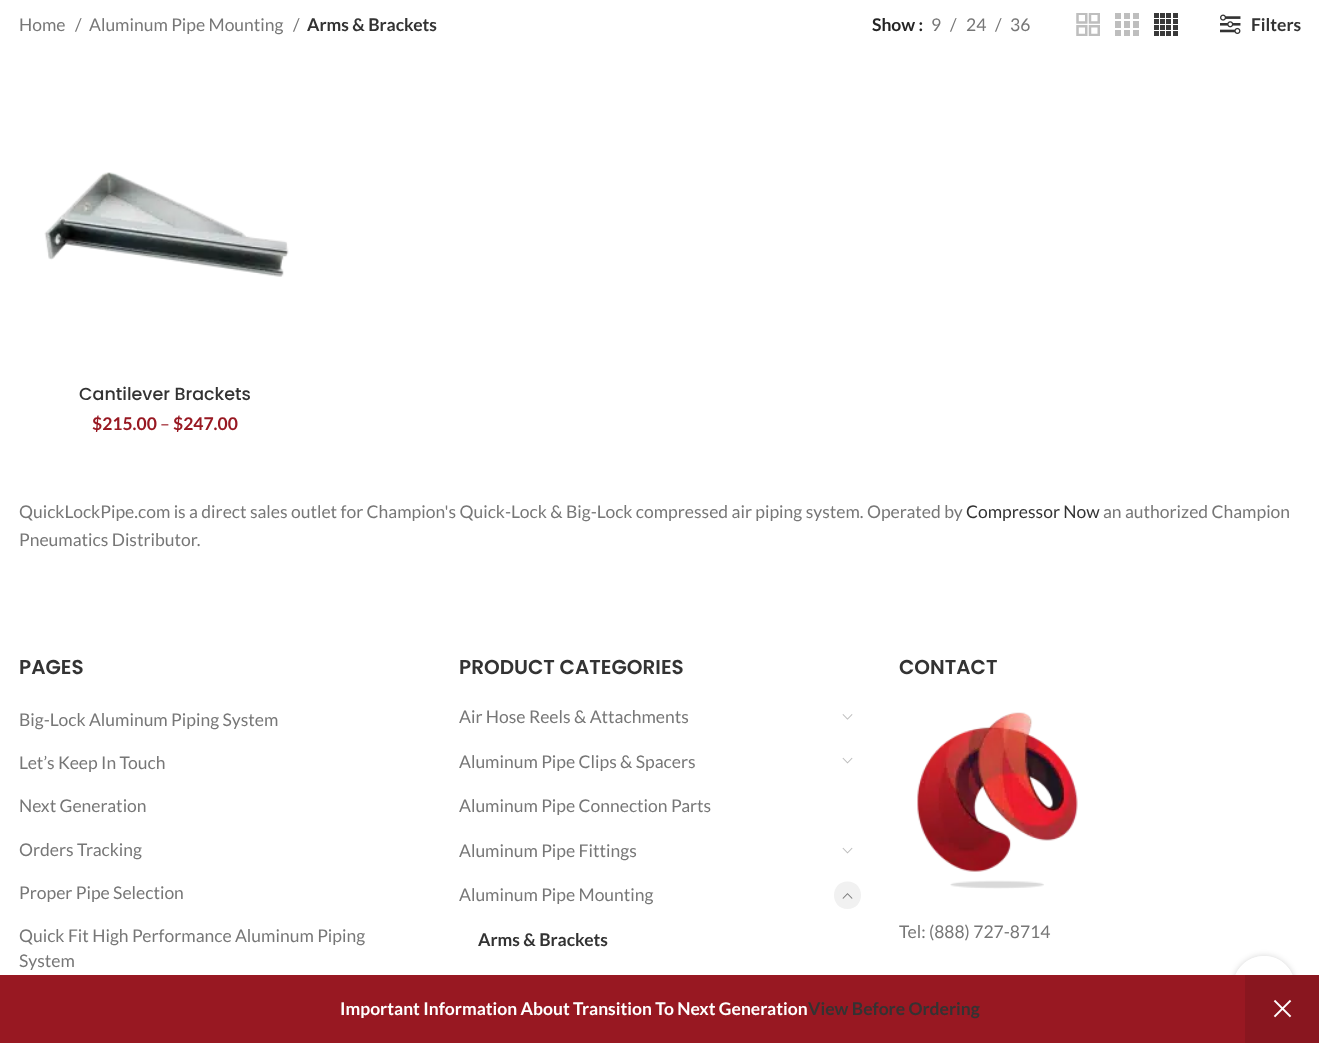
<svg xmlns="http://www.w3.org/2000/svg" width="1319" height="1043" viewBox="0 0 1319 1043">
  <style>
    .t1 { font: 17.5px Lato; fill: #777; }
    .t2 { font: bold 17.5px Lato; fill: #333; }
    .t3 { font: bold 17.5px Lato; fill: #242424; }
    .t4 { font: 500 17.5px Poppins; fill: #333; }
    .t5 { font: bold 17.5px Lato; fill: #981822; }
    .t6 { font: 17.5px Lato; fill: #981822; }
    .t7 { font: 17.5px Lato; fill: #333; }
    .t8 { font: 600 20px Poppins; fill: #333; }
    .t9 { font: bold 17.5px Lato; fill: #fff; }
  </style>
  <defs>
    <clipPath id="clip1"><path d="M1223 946H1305V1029H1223ZM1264 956C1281 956 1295 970 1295 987V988C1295 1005 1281 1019 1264 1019C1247 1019 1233 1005 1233 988V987C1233 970 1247 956 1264 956Z" clip-rule="evenodd"/></clipPath>
  </defs>
  <rect width="100%" height="100%" fill="#fff"/>
  <text x="19" y="31" class="t1">Home</text>
  <text x="75" y="31" class="t1">/</text>
  <text x="89" y="31" class="t1">Aluminum Pipe Mounting</text>
  <text x="293" y="31" class="t1">/</text>
  <text x="307" y="31" class="t2">Arms &amp; Brackets</text>
  <text x="872" y="31" class="t3">Show :</text>
  <text x="931" y="31" class="t1">9</text>
  <text x="950" y="31" class="t1">/</text>
  <text x="966" y="31" class="t1">24</text>
  <text x="995" y="31" class="t1">/</text>
  <text x="1010" y="31" class="t1">36</text>
  <image x="1076" y="13" width="24" height="23" href="images/1.png"/>
  <image x="1115" y="13" width="24" height="23" href="images/2.png"/>
  <image x="1154" y="13" width="24" height="23" href="images/3.png"/>
  <image x="1220" y="14" width="21" height="20" href="images/4.png"/>
  <text x="1251" y="31" class="t2">Filters</text>
  <image x="44" y="172" width="245" height="105" href="images/5.png"/>
  <text x="79" y="400" class="t4">Cantilever Brackets</text>
  <text x="92" y="430" class="t5">$215.00</text>
  <text x="160" y="430" class="t6">–</text>
  <text x="173" y="430" class="t5">$247.00</text>
  <text x="19" y="518" class="t1">QuickLockPipe.com is a direct sales outlet for Champion's Quick-Lock &amp; Big-Lock compressed air piping system. Operated by</text>
  <text x="966" y="518" class="t7">Compressor Now</text>
  <text x="1103" y="518" class="t1">an authorized Champion</text>
  <text x="19" y="546" class="t1">Pneumatics Distributor.</text>
  <text x="19" y="674" class="t8">PAGES</text>
  <text x="19" y="726" class="t1">Big-Lock Aluminum Piping System</text>
  <text x="19" y="769" class="t1">Let’s Keep In Touch</text>
  <text x="19" y="812" class="t1">Next Generation</text>
  <text x="19" y="856" class="t1">Orders Tracking</text>
  <text x="19" y="899" class="t1">Proper Pipe Selection</text>
  <text x="19" y="942" class="t1">Quick Fit High Performance Aluminum Piping</text>
  <text x="19" y="967" class="t1">System</text>
  <text x="459" y="674" class="t8">PRODUCT CATEGORIES</text>
  <text x="459" y="723" class="t1">Air Hose Reels &amp; Attachments</text>
  <image x="842" y="714" width="11" height="6" href="images/6.png"/>
  <text x="459" y="768" class="t1">Aluminum Pipe Clips &amp; Spacers</text>
  <image x="842" y="757" width="11" height="7" href="images/7.png"/>
  <text x="459" y="812" class="t1">Aluminum Pipe Connection Parts</text>
  <text x="459" y="857" class="t1">Aluminum Pipe Fittings</text>
  <image x="842" y="847" width="11" height="7" href="images/7.png"/>
  <text x="459" y="901" class="t1">Aluminum Pipe Mounting</text>
  <path d="M847.5 909C829.5 909 829.5 881.5 847.5 881.5C865.5 881.5 865.5 909 847.5 909Z" fill="#f1f1f1"/>
  <image x="842" y="893" width="11" height="6" href="images/8.png"/>
  <text x="478" y="946" class="t2">Arms &amp; Brackets</text>
  <text x="899" y="674" class="t8">CONTACT</text>
  <image x="917" y="712" width="161" height="177" href="images/9.png"/>
  <text x="899" y="938" class="t1">Tel: (888) 727-8714</text>
  <g clip-path="url(#clip1)">
    <rect x="1233" y="956" width="62" height="63" rx="31" fill="#0000002b" filter="blur(3px)"/>
  </g>
  <rect x="1233" y="956" width="62" height="63" rx="31" fill="#ffffffe6"/>
  <rect x="0" y="975" width="1245" height="68" fill="#981822"/>
  <text x="340" y="1015" class="t9">Important Information About Transition To Next Generation</text>
  <text x="808" y="1015" class="t2">View Before Ordering</text>
  <rect x="1245" y="975" width="74" height="68" fill="#89161f"/>
  <image x="1273" y="999" width="19" height="19" href="images/10.png"/>
</svg>
